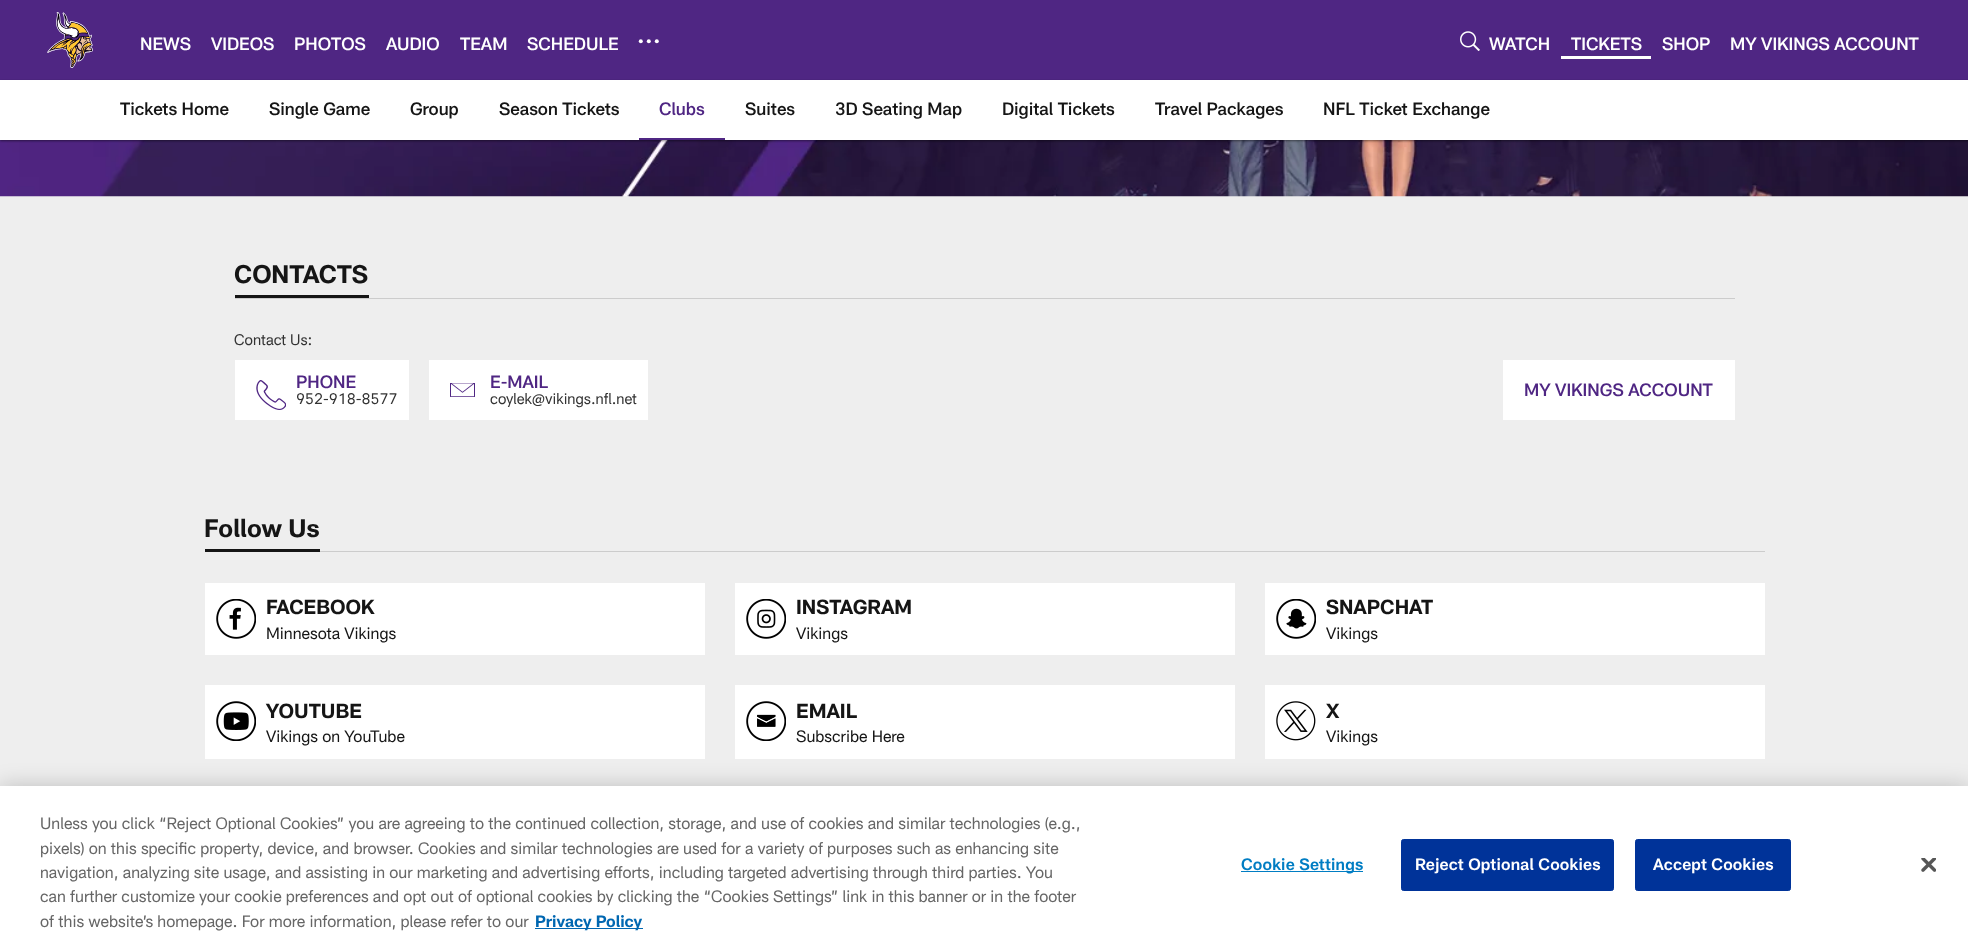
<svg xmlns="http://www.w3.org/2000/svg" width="1968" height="946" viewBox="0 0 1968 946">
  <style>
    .t1 { font: 500 17.5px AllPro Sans; fill: #fff; }
    .t2 { font: 500 17.5px AllPro Sans; fill: #151515; }
    .t3 { font: 500 17.5px AllPro Sans; fill: #4f2683; }
    .t4 { font: bold 25px AllPro Sans; fill: #151515; }
    .t5 { font: 15px AllPro Sans; fill: #333; }
    .t6 { font: bold 20px AllPro Sans; fill: #151515; }
    .t7 { font: 16.25px AllPro Sans; fill: #151515; }
    .t8 { font: 16.25px AllPro Sans; fill: #666; }
    .t9 { font: bold 16.25px AllPro Sans; fill: #0067b1; }
    .t10 { font: 600 16.25px AllPro Sans; letter-spacing: 0.2px; fill: #007dc3; }
    .t11 { font: 600 16.25px AllPro Sans; letter-spacing: 0.2px; fill: #fff; }
  </style>
  <rect width="100%" height="100%" fill="#eee"/>
  <rect x="0" y="0" width="1968" height="80" fill="#4f2683"/>
  <image x="47" y="12" width="46" height="56" href="images/1.png"/>
  <text x="140" y="50" class="t1">NEWS</text>
  <text x="211" y="50" class="t1">VIDEOS</text>
  <text x="294" y="50" class="t1">PHOTOS</text>
  <text x="386" y="50" class="t1">AUDIO</text>
  <text x="460" y="50" class="t1">TEAM</text>
  <text x="527" y="50" class="t1">SCHEDULE</text>
  <circle cx="656.8" cy="41.2" r="2" fill="#fff"/>
  <circle cx="648.8" cy="41.2" r="2" fill="#fff"/>
  <circle cx="640.8" cy="41.2" r="2" fill="#fff"/>
  <image x="1460" y="31" width="20" height="20" href="images/2.png"/>
  <text x="1489" y="50" class="t1">WATCH</text>
  <rect x="1561" y="56" width="90" height="3" fill="#fff"/>
  <text x="1571" y="50" class="t1">TICKETS</text>
  <text x="1662" y="50" class="t1">SHOP</text>
  <text x="1730" y="50" class="t1">MY VIKINGS ACCOUNT</text>
  <image x="0" y="140" width="1968" height="57" href="images/3.png"/>
  <rect x="0" y="81" width="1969" height="60" fill="#00000078" filter="blur(1px)"/>
  <rect x="0" y="80" width="1968" height="60" fill="#fff"/>
  <text x="120" y="115" class="t2">Tickets Home</text>
  <text x="269" y="115" class="t2">Single Game</text>
  <text x="410" y="115" class="t2">Group</text>
  <text x="499" y="115" class="t2">Season Tickets</text>
  <rect x="639" y="138" width="86" height="2" fill="#4f2683"/>
  <text x="659" y="115" class="t3">Clubs</text>
  <text x="745" y="115" class="t2">Suites</text>
  <text x="835" y="115" class="t2">3D Seating Map</text>
  <text x="1002" y="115" class="t2">Digital Tickets</text>
  <text x="1155" y="115" class="t2">Travel Packages</text>
  <text x="1323" y="115" class="t2">NFL Ticket Exchange</text>
  <rect x="235" y="298" width="1500" height="1" fill="#ccc"/>
  <rect x="235" y="295" width="134" height="3" fill="#151515"/>
  <text x="234" y="283" class="t4">CONTACTS</text>
  <text x="234" y="345" class="t5">Contact Us:</text>
  <rect x="235" y="360" width="174" height="60" fill="#fff"/>
  <image x="256" y="380" width="30" height="30" href="images/4.png"/>
  <text x="296" y="388" class="t3">PHONE</text>
  <text x="296" y="404" class="t5">952-918-8577</text>
  <rect x="429" y="360" width="219" height="60" fill="#fff"/>
  <image x="450" y="383" width="25" height="14" href="images/5.png"/>
  <text x="490" y="388" class="t3">E-MAIL</text>
  <text x="490" y="404" class="t5">coylek@vikings.nfl.net</text>
  <rect x="1503" y="360" width="232" height="60" fill="#fff"/>
  <text x="1524" y="396" class="t3">MY VIKINGS ACCOUNT</text>
  <rect x="320" y="551" width="1445" height="1" fill="#ccc"/>
  <rect x="205" y="549" width="115" height="3" fill="#151515"/>
  <text x="204" y="537" class="t4">Follow Us</text>
  <rect x="205" y="583" width="500" height="72" fill="#fff"/>
  <image x="216" y="599" width="40" height="40" href="images/6.png"/>
  <text x="266" y="614" class="t6">FACEBOOK</text>
  <text x="266" y="639" class="t7">Minnesota Vikings</text>
  <rect x="735" y="583" width="500" height="72" fill="#fff"/>
  <image x="746" y="599" width="40" height="40" href="images/7.png"/>
  <text x="796" y="614" class="t6">INSTAGRAM</text>
  <text x="796" y="639" class="t7">Vikings</text>
  <rect x="1265" y="583" width="500" height="72" fill="#fff"/>
  <image x="1276" y="599" width="40" height="40" href="images/8.png"/>
  <text x="1326" y="614" class="t6">SNAPCHAT</text>
  <text x="1326" y="639" class="t7">Vikings</text>
  <rect x="205" y="685" width="500" height="74" fill="#fff"/>
  <image x="216" y="701" width="40" height="40" href="images/9.png"/>
  <text x="266" y="718" class="t6">YOUTUBE</text>
  <text x="266" y="742" class="t7">Vikings on YouTube</text>
  <rect x="735" y="685" width="500" height="74" fill="#fff"/>
  <image x="746" y="701" width="40" height="40" href="images/10.png"/>
  <text x="796" y="718" class="t6">EMAIL</text>
  <text x="796" y="742" class="t7">Subscribe Here</text>
  <rect x="1265" y="685" width="500" height="74" fill="#fff"/>
  <image x="1276" y="701" width="40" height="40" href="images/11.png"/>
  <text x="1326" y="718" class="t6">X</text>
  <text x="1326" y="742" class="t7">Vikings</text>
  <rect x="0" y="786" width="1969" height="160" fill="#00000033" filter="blur(11px)"/>
  <rect x="0" y="786" width="1968" height="160" fill="#fff"/>
  <text x="40" y="829" class="t8">Unless you click “Reject Optional Cookies” you are agreeing to the continued collection, storage, and use of cookies and similar technologies (e.g.,</text>
  <text x="40" y="854" class="t8">pixels) on this specific property, device, and browser. Cookies and similar technologies are used for a variety of purposes such as enhancing site</text>
  <text x="40" y="878" class="t8">navigation, analyzing site usage, and assisting in our marketing and advertising efforts, including targeted advertising through third parties. You</text>
  <text x="40" y="902" class="t8">can further customize your cookie preferences and opt out of optional cookies by clicking the “Cookies Settings” link in this banner or in the footer</text>
  <text x="40" y="927" class="t8">of this website’s homepage. For more information, please refer to our</text>
  <rect x="535" y="928" width="108" height="1" fill="#0067b1"/>
  <text x="535" y="927" class="t9">Privacy Policy</text>
  <rect x="1241" y="871" width="122" height="1" fill="#007dc3"/>
  <text x="1241" y="870" class="t10">Cookie Settings</text>
  <rect x="1401.5" y="839.5" width="212" height="51" rx="2" fill="#039" stroke="#039"/>
  <text x="1415" y="870" class="t11">Reject Optional Cookies</text>
  <rect x="1635.5" y="839.5" width="155" height="51" rx="2" fill="#039" stroke="#039"/>
  <text x="1653" y="870" class="t11">Accept Cookies</text>
  <image x="1921" y="858" width="15" height="14" href="images/12.png"/>
</svg>
